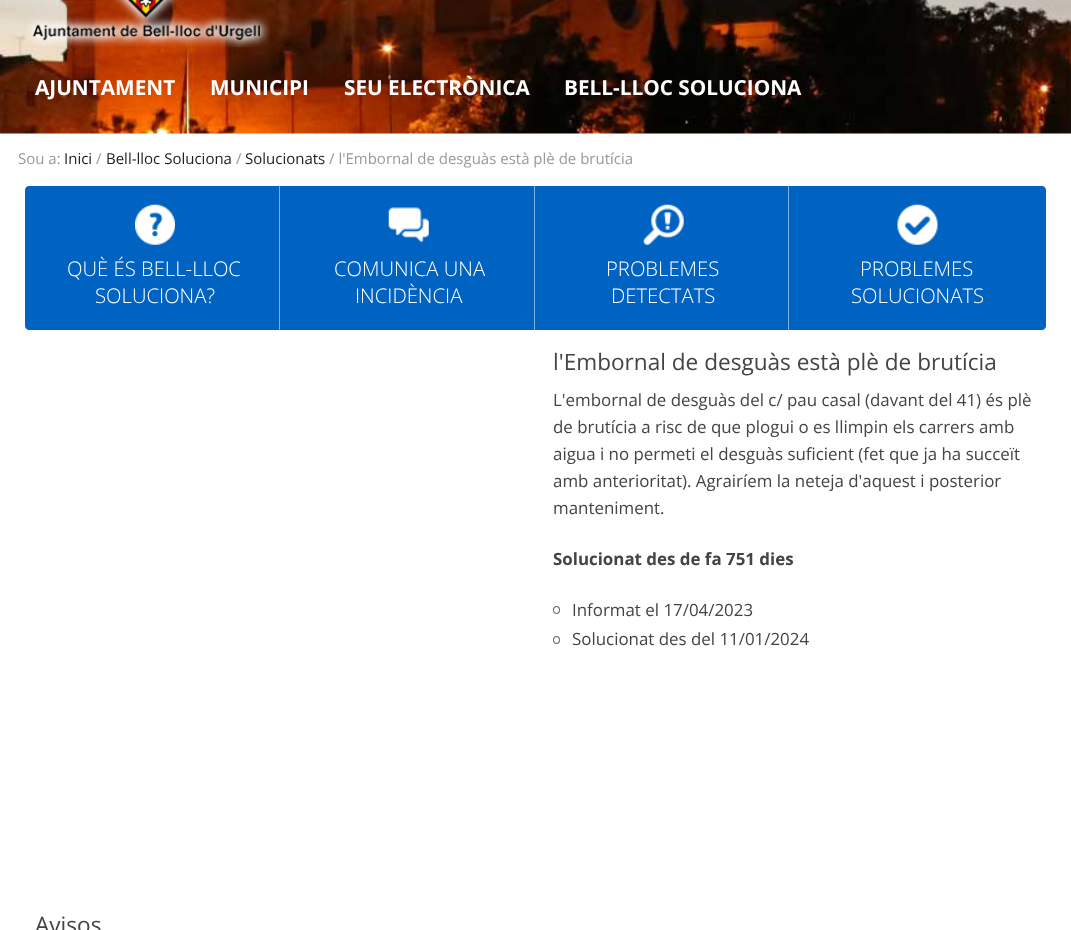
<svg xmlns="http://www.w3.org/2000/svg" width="1071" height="930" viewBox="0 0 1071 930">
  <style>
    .t1 { font: bold 20.75px Open Sans; fill: #fff; }
    .t2 { font: 15px Open Sans; fill: #999; }
    .t3 { font: 15px Open Sans; fill: #222; }
    .t4 { font: 300 20.25px Open Sans; fill: #fff; }
    .t5 { font: 22.6px Open Sans; fill: #444; }
    .t6 { font: 16.9px Open Sans; fill: #444; }
    .t7 { font: bold 16.9px Open Sans; fill: #444; }
  </style>
  <rect width="100%" height="100%" fill="#fff"/>
  <image x="0" y="0" width="1071" height="134" href="images/1.png"/>
  <image x="26" y="0" width="244" height="48" href="images/2.png"/>
  <text x="35" y="95" class="t1">AJUNTAMENT</text>
  <text x="210" y="95" class="t1">MUNICIPI</text>
  <text x="344" y="95" class="t1">SEU ELECTRÒNICA</text>
  <text x="564" y="95" class="t1">BELL-LLOC SOLUCIONA</text>
  <text x="18" y="164" class="t2">Sou a:</text>
  <text x="64" y="164" class="t3">Inici</text>
  <text x="96" y="164" class="t2">/</text>
  <text x="106" y="164" class="t3">Bell-lloc Soluciona</text>
  <text x="236" y="164" class="t2">/</text>
  <text x="245" y="164" class="t3">Solucionats</text>
  <text x="329" y="164" class="t2">/ l'Embornal de desguàs està plè de brutícia</text>
  <path d="M29 186H284V330H29C27 330 25 328 25 326V190C25 188 27 186 29 186Z" fill="#0062c1"/>
  <image x="135" y="204" width="40" height="41" href="images/3.png"/>
  <text x="67" y="276" class="t4">QUÈ ÉS BELL-LLOC</text>
  <text x="95" y="303" class="t4">SOLUCIONA?</text>
  <rect x="284" y="186" width="250" height="144" fill="#0062c1"/>
  <rect x="279" y="186" width="1" height="144" fill="#80b1e0"/>
  <image x="388" y="207" width="41" height="36" href="images/4.png"/>
  <text x="334" y="276" class="t4">COMUNICA UNA</text>
  <text x="355" y="303" class="t4">INCIDÈNCIA</text>
  <rect x="535" y="186" width="253" height="144" fill="#0062c1"/>
  <rect x="534" y="186" width="1" height="144" fill="#80b1e0"/>
  <image x="643" y="204" width="41" height="41" href="images/5.png"/>
  <text x="606" y="276" class="t4">PROBLEMES</text>
  <text x="611" y="303" class="t4">DETECTATS</text>
  <path d="M788 186H1042C1044 186 1046 188 1046 190V326C1046 328 1044 330 1042 330H788Z" fill="#0062c1"/>
  <rect x="788" y="186" width="1" height="144" fill="#80b1e0"/>
  <image x="897" y="204" width="41" height="41" href="images/6.png"/>
  <text x="860" y="276" class="t4">PROBLEMES</text>
  <text x="851" y="303" class="t4">SOLUCIONATS</text>
  <text x="553" y="370" class="t5">l'Embornal de desguàs està plè de brutícia</text>
  <text x="553" y="406" class="t6">L'embornal de desguàs del c/ pau casal (davant del 41) és plè</text>
  <text x="553" y="433" class="t6">de brutícia a risc de que plogui o es llimpin els carrers amb</text>
  <text x="553" y="460" class="t6">aigua i no permeti el desguàs suficient (fet que ja ha succeït</text>
  <text x="553" y="487" class="t6">amb anterioritat). Agrairíem la neteja d'aquest i posterior</text>
  <text x="553" y="514" class="t6">manteniment.</text>
  <text x="553" y="565" class="t7">Solucionat des de fa 751 dies</text>
  <rect x="553.5" y="606.5" width="6" height="7" rx="3" fill="none" stroke="#444"/>
  <text x="572" y="616" class="t6">Informat el 17/04/2023</text>
  <rect x="553.5" y="636.5" width="6" height="7" rx="3" fill="none" stroke="#444"/>
  <text x="572" y="645" class="t6">Solucionat des del 11/01/2024</text>
  <text x="35" y="933" class="t5">Avisos</text>
</svg>
